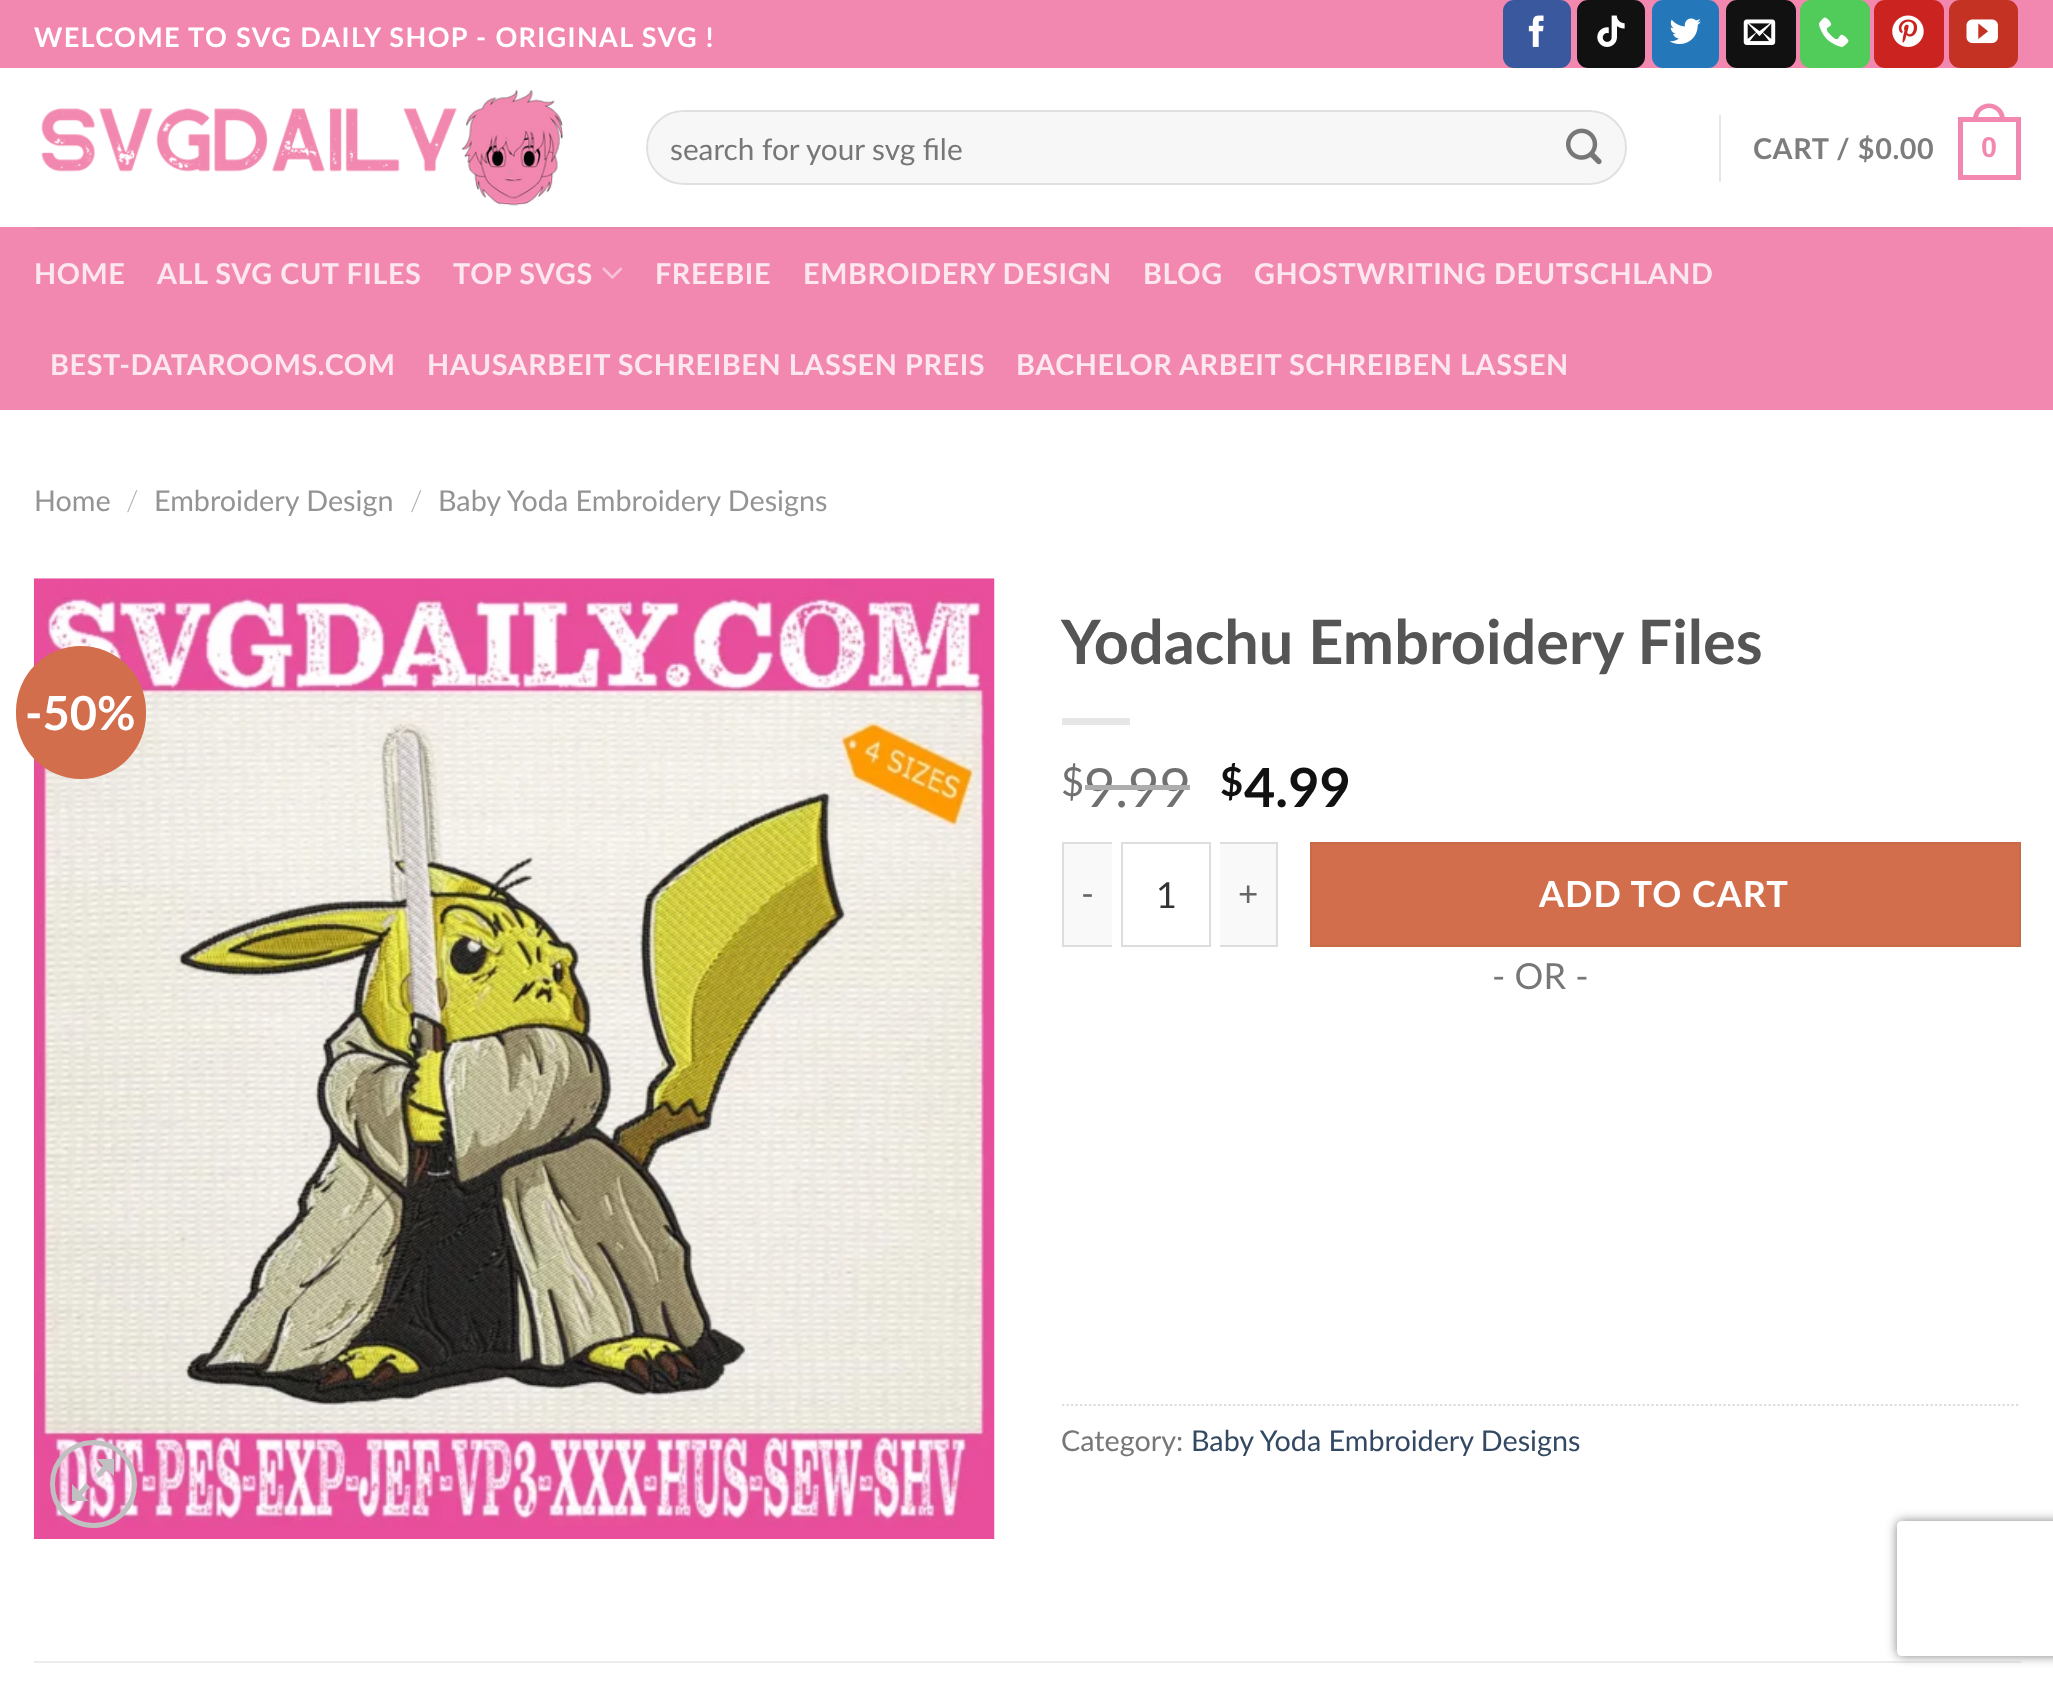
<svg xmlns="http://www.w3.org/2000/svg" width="2053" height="1687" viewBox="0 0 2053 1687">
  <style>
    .t1 { font: bold 27px Lato; letter-spacing: 1.35px; fill: #fff; }
    .t2 { font: 29.75px Lato; fill: #777; }
    .t3 { font: bold 28.75px Lato; letter-spacing: 0.6px; fill: #7d7d7d; }
    .t4 { font: bold 28.75px Liberation Sans; letter-spacing: 0.6px; fill: #f288af; }
    .t5 { font: bold 28.75px Lato; letter-spacing: 0.6px; fill: #fce7ef; }
    .t6 { font: 28.75px Lato; fill: #949494; }
    .t7 { font: 300 28.75px Lato; fill: #b2b2b2; }
    .t8 { font: bold 47px Lato; fill: #fff; }
    .t9 { font: bold 61.25px Lato; fill: #555; }
    .t10 { font: 40px Lato; fill: #707070; }
    .t11 { font: 54px Lato; fill: #707070; }
    .t12 { font: bold 40px Lato; fill: #111; }
    .t13 { font: bold 54px Lato; fill: #111; }
    .t14 { font: 35px Lato; letter-spacing: 1px; fill: #666; }
    .t15 { font: 36px Lato; fill: #333; }
    .t16 { font: bold 36px Lato; letter-spacing: 1px; fill: #fff; }
    .t17 { font: 36px Lato; fill: #777; }
    .t18 { font: 28.75px Lato; fill: #777; }
    .t19 { font: 28.75px Lato; fill: #334862; }
  </style>
  <defs>
    <clipPath id="clip1"><path d="M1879 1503H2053V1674H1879ZM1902 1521H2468C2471 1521 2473 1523 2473 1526V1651C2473 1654 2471 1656 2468 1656H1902C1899 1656 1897 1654 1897 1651V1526C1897 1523 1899 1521 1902 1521Z" clip-rule="evenodd"/></clipPath>
  </defs>
  <rect width="100%" height="100%" fill="#fff"/>
  <rect x="0" y="0" width="2053" height="68" fill="#f288af"/>
  <text x="34" y="47" class="t1">WELCOME TO SVG DAILY SHOP - ORIGINAL SVG !</text>
  <rect x="1504" y="1" width="66" height="66" rx="10" fill="#3a589d" stroke="#3a589d" stroke-width="2"/>
  <image x="1528" y="15" width="16" height="32" href="images/1.png"/>
  <rect x="1578" y="1" width="66" height="66" rx="10" fill="#111" stroke="#111" stroke-width="2"/>
  <image x="1597" y="15" width="28" height="32" href="images/2.png"/>
  <rect x="1653" y="1" width="65" height="66" rx="10" fill="#2478ba" stroke="#2478ba" stroke-width="2"/>
  <image x="1669" y="18" width="32" height="26" href="images/3.png"/>
  <rect x="1727" y="1" width="68" height="66" rx="10" fill="#111" stroke="#111" stroke-width="2"/>
  <image x="1743" y="19" width="33" height="26" href="images/4.png"/>
  <rect x="1801" y="1" width="68" height="66" rx="10" fill="#51cb5a" stroke="#51cb5a" stroke-width="2"/>
  <image x="1819" y="17" width="30" height="30" href="images/5.png"/>
  <rect x="1875" y="1" width="68" height="66" rx="10" fill="#cb2320" stroke="#cb2320" stroke-width="2"/>
  <image x="1892" y="15" width="32" height="32" href="images/6.png"/>
  <rect x="1950" y="1" width="67" height="66" rx="10" fill="#c33223" stroke="#c33223" stroke-width="2"/>
  <image x="1966" y="19" width="32" height="25" href="images/7.png"/>
  <image x="41" y="89" width="523" height="117" href="images/8.png"/>
  <rect x="646" y="110" width="981" height="75" rx="37.5" fill="#f7f7f7"/>
  <rect x="647" y="111" width="979" height="73" rx="36.5" fill="none" stroke="#00000017" stroke-width="2"/>
  <text x="670" y="160" class="t2">search for your svg file</text>
  <image x="1566" y="128" width="36" height="37" href="images/9.png"/>
  <rect x="1719" y="115" width="2" height="67" fill="#e6e6e6"/>
  <text x="1753" y="159" class="t3">CART / $0.00</text>
  <rect x="1960.5" y="119.5" width="58" height="58" fill="none" stroke="#f288af" stroke-width="5"/>
  <path d="M1989 103.5C1997.5 103.5 2005 110.5 2005 119V121.5H1973V119C1973 110.5 1980.5 103.5 1989 103.5ZM1989 108C1995 108 2000 113 2000 119V121.5H1978V119C1978 113 1983 108 1989 108Z" fill="#f288af" fill-rule="evenodd"/>
  <text x="1981" y="157" class="t4">0</text>
  <rect x="0" y="227" width="2053" height="183" fill="#f288af"/>
  <rect x="34" y="227" width="1987" height="2" fill="#e686a9"/>
  <text x="34" y="284" class="t5">HOME</text>
  <text x="157" y="284" class="t5">ALL SVG CUT FILES</text>
  <text x="453" y="284" class="t5">TOP SVGS</text>
  <image x="602" y="267" width="21" height="12" href="images/10.png"/>
  <text x="655" y="284" class="t5">FREEBIE</text>
  <text x="803" y="284" class="t5">EMBROIDERY DESIGN</text>
  <text x="1143" y="284" class="t5">BLOG</text>
  <text x="1254" y="284" class="t5">GHOSTWRITING DEUTSCHLAND</text>
  <text x="50" y="375" class="t5">BEST-DATAROOMS.COM</text>
  <text x="427" y="375" class="t5">HAUSARBEIT SCHREIBEN LASSEN PREIS</text>
  <text x="1016" y="375" class="t5">BACHELOR ARBEIT SCHREIBEN LASSEN</text>
  <text x="34" y="511" class="t6">Home</text>
  <text x="126" y="511" class="t7">/</text>
  <text x="154" y="511" class="t6">Embroidery Design</text>
  <text x="410" y="511" class="t7">/</text>
  <text x="438" y="511" class="t6">Baby Yoda Embroidery Designs</text>
  <image x="33" y="578" width="962" height="961" href="images/11.png"/>
  <rect x="16" y="646" width="130" height="133" rx="65" fill="#d26e4b"/>
  <text x="25" y="730" class="t8">-50%</text>
  <rect x="52.5" y="1442.5" width="82" height="83" rx="41" fill="none" stroke="#c0c0c0" stroke-width="5"/>
  <path d="M114 1459V1476L107 1470L99 1478L96 1474L103 1466L97 1459ZM90 1487L82 1495L89 1501H72V1484L79 1491L86 1483Z" fill="#c0c0c0"/>
  <text x="1061" y="664" class="t9">Yodachu Embroidery Files</text>
  <rect x="1062" y="718" width="68" height="7" fill="#e6e6e6"/>
  <text x="1061" y="796" class="t10">$</text>
  <text x="1084" y="807" class="t11">9.99</text>
  <rect x="1085" y="785" width="105" height="5" fill="#adadad"/>
  <text x="1220" y="796" class="t12">$</text>
  <text x="1244" y="807" class="t13">4.99</text>
  <rect x="1064" y="844" width="48" height="101" fill="#f9f9f9"/>
  <rect x="1062" y="842" width="50" height="2" fill="#ddd"/>
  <rect x="1062" y="945" width="50" height="2" fill="#ddd"/>
  <rect x="1062" y="842" width="2" height="105" fill="#ddd"/>
  <text x="1081" y="906" class="t14">-</text>
  <rect x="1122" y="843" width="88" height="103" fill="none" stroke="#ddd" stroke-width="2"/>
  <text x="1156" y="908" class="t15">1</text>
  <rect x="1220" y="844" width="56" height="101" fill="#f9f9f9"/>
  <rect x="1220" y="842" width="58" height="2" fill="#ddd"/>
  <rect x="1276" y="842" width="2" height="105" fill="#ddd"/>
  <rect x="1220" y="945" width="58" height="2" fill="#ddd"/>
  <text x="1238" y="906" class="t14">+</text>
  <rect x="1311" y="843" width="709" height="103" fill="#d26e4b" stroke="#c86947" stroke-width="2"/>
  <text x="1539" y="907" class="t16">ADD TO CART</text>
  <text x="1492" y="989" class="t17">- OR -</text>
  <path d="M1062 1405H2020.5" fill="none" stroke="#ddd" stroke-width="2.2" stroke-dasharray="2.25 2.25"/>
  <text x="1061" y="1451" class="t18">Category:</text>
  <text x="1191" y="1451" class="t19">Baby Yoda Embroidery Designs</text>
  <rect x="34" y="1661" width="1987" height="2" fill="#ececec"/>
  <g clip-path="url(#clip1)">
    <rect x="1897" y="1521" width="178" height="135" rx="5" fill="#808080" filter="blur(5.5px)"/>
  </g>
</svg>
